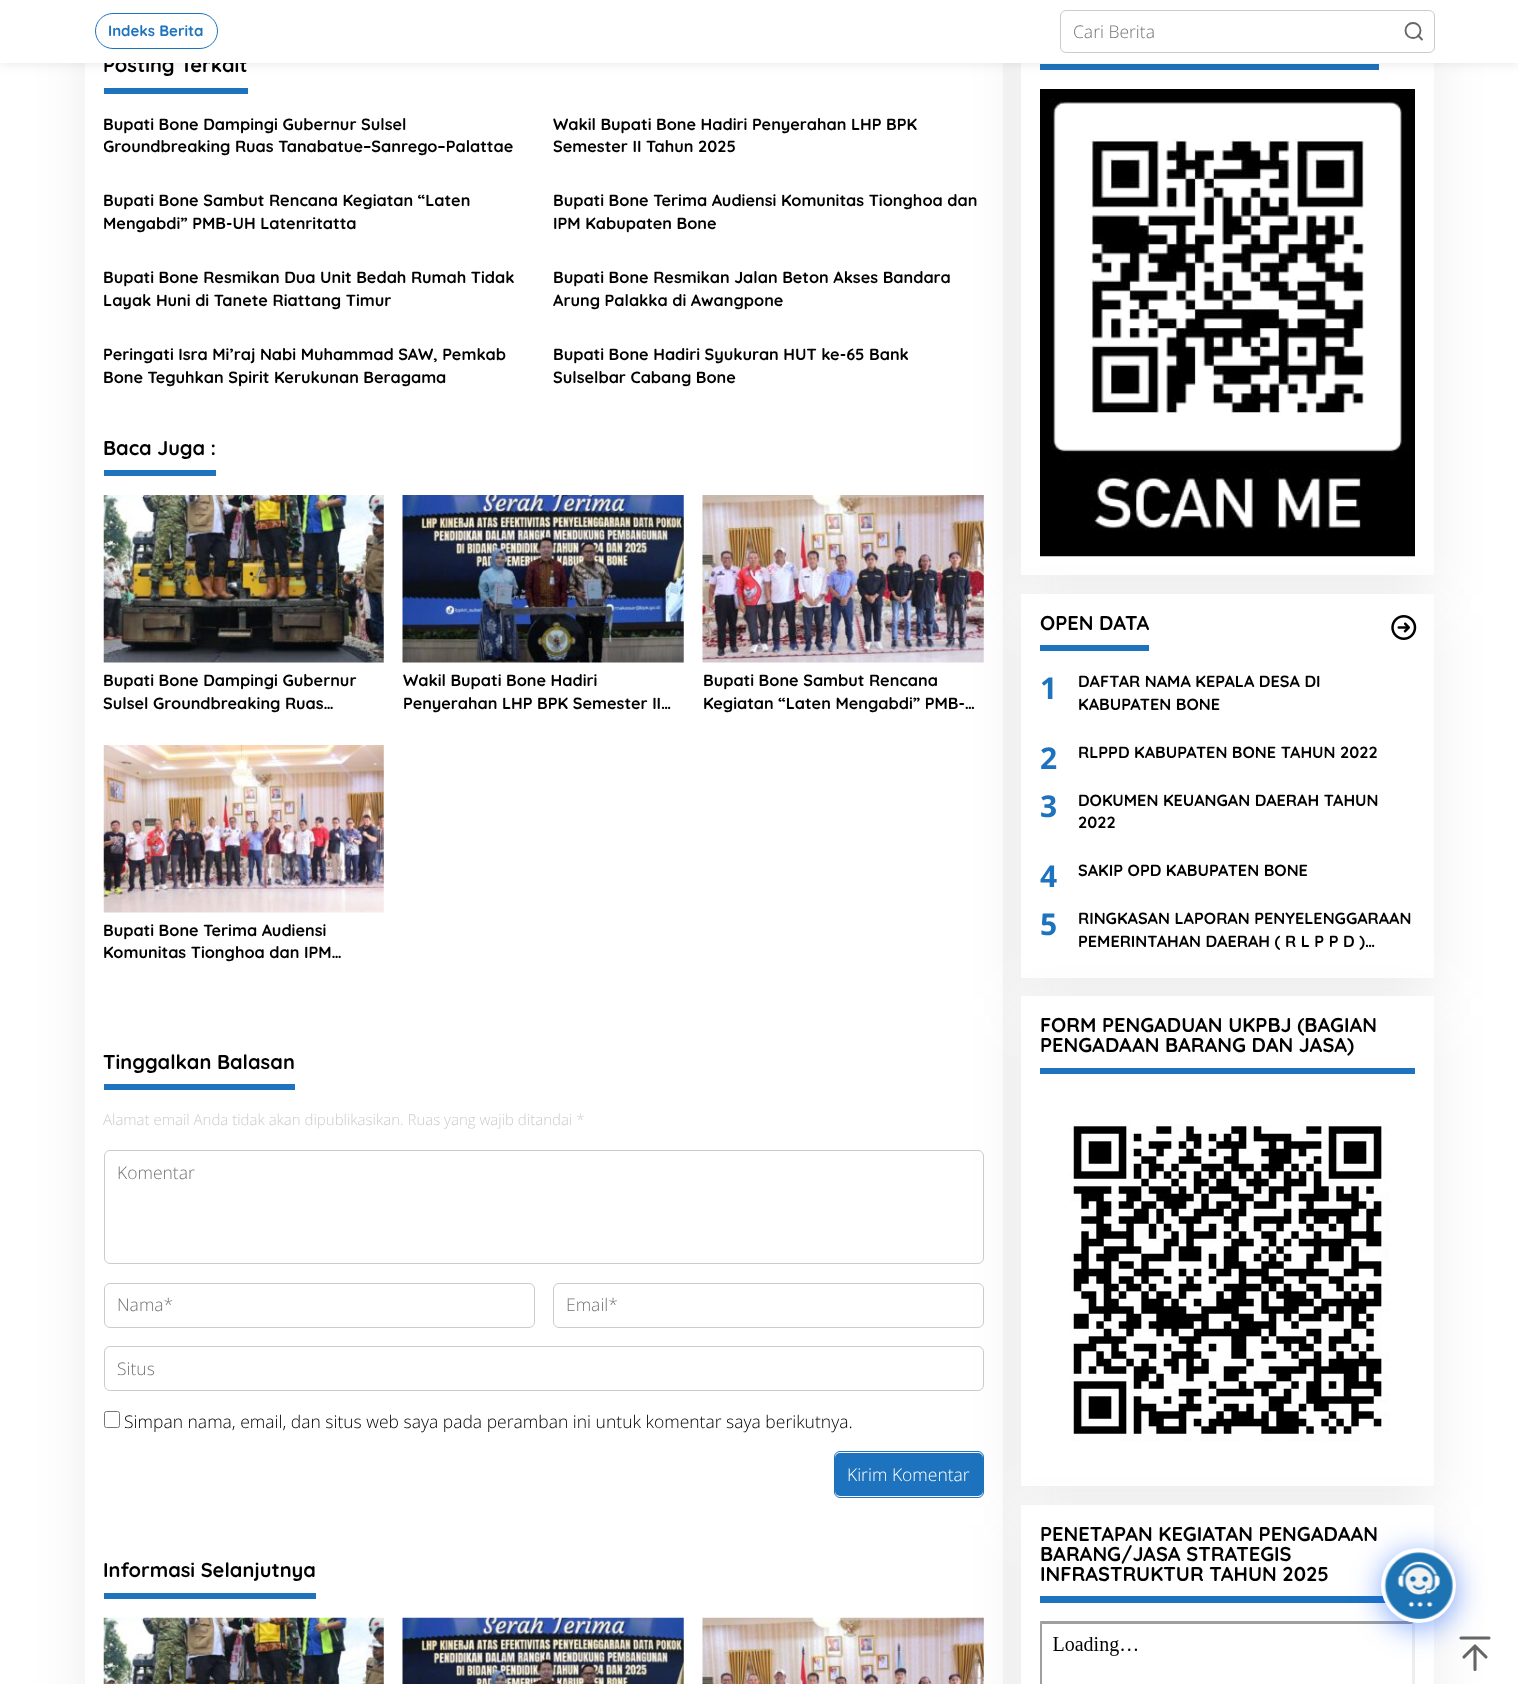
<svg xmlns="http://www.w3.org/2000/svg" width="1518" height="1684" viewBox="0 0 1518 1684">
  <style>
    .t1 { font: bold 20px Quicksand; fill: #000; }
    .t2 { font: bold 15px Quicksand; fill: #1e73be; }
    .t3 { font: 300 17.5px Open Sans; fill: #757575; }
    .t4 { font: bold 16.25px Quicksand; fill: #000; }
    .t5 { font: 300 15px Open Sans; fill: #ccc; }
    .t6 { font: 300 17.5px Open Sans; fill: #000; }
    .t7 { font: 300 17.5px Open Sans; fill: #fff; }
    .t8 { font: bold 30px Open Sans; fill: #1e73be; }
  </style>
  <defs>
    <clipPath id="clip1"><rect x="104" y="113" width="430" height="45"/></clipPath>
  </defs>
  <rect width="100%" height="100%" fill="#fff"/>
  <rect x="85" y="-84" width="918" height="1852" fill="#00000012" filter="blur(28px)"/>
  <rect x="85" y="63" width="918" height="1621" fill="#fff"/>
  <image x="702" y="495" width="282" height="168" href="images/3.png"/>
  <rect x="1021" y="33" width="413" height="562" fill="#00000012" filter="blur(28px)"/>
  <rect x="1021" y="63" width="413" height="512" fill="#fff"/>
  <rect x="1040" y="64" width="339" height="6" fill="#1e73be"/>
  <rect x="0" y="0" width="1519" height="63" fill="#0000001a" filter="blur(6px)"/>
  <text x="103" y="72" class="t1">Posting Terkait</text>
  <rect x="0" y="0" width="1518" height="63" fill="#fff"/>
  <rect x="95.5" y="13.5" width="122" height="35" rx="17.5" fill="none" stroke="#1e73be"/>
  <text x="108" y="36" class="t2">Indeks Berita</text>
  <rect x="1060.5" y="10.5" width="374" height="42" rx="5.5" fill="none" stroke="#ccc"/>
  <text x="1073" y="38" class="t3">Cari Berita</text>
  <circle cx="1413" cy="30.5" r="7.5" fill="none" stroke="#666" stroke-width="1.9"/>
  <path d="M1422 39.5L1418 35.5" fill="none" stroke="#666" stroke-width="1.9" stroke-linecap="round" stroke-linejoin="round"/>
  <rect x="104" y="88" width="144" height="6" fill="#1e73be"/>
  <text x="103" y="130" class="t4">Bupati Bone Dampingi Gubernur Sulsel</text>
  <g clip-path="url(#clip1)">
    <text x="103" y="152" class="t4">Groundbreaking Ruas Tanabatue–Sanrego–Palattae</text>
  </g>
  <text x="553" y="130" class="t4">Wakil Bupati Bone Hadiri Penyerahan LHP BPK</text>
  <text x="553" y="152" class="t4">Semester II Tahun 2025</text>
  <text x="103" y="206" class="t4">Bupati Bone Sambut Rencana Kegiatan “Laten</text>
  <text x="103" y="229" class="t4">Mengabdi” PMB-UH Latenritatta</text>
  <text x="553" y="206" class="t4">Bupati Bone Terima Audiensi Komunitas Tionghoa dan</text>
  <text x="553" y="229" class="t4">IPM Kabupaten Bone</text>
  <text x="103" y="283" class="t4">Bupati Bone Resmikan Dua Unit Bedah Rumah Tidak</text>
  <text x="103" y="306" class="t4">Layak Huni di Tanete Riattang Timur</text>
  <text x="553" y="283" class="t4">Bupati Bone Resmikan Jalan Beton Akses Bandara</text>
  <text x="553" y="306" class="t4">Arung Palakka di Awangpone</text>
  <text x="103" y="360" class="t4">Peringati Isra Mi’raj Nabi Muhammad SAW, Pemkab</text>
  <text x="103" y="383" class="t4">Bone Teguhkan Spirit Kerukunan Beragama</text>
  <text x="553" y="360" class="t4">Bupati Bone Hadiri Syukuran HUT ke-65 Bank</text>
  <text x="553" y="383" class="t4">Sulselbar Cabang Bone</text>
  <rect x="104" y="470" width="112" height="6" fill="#1e73be"/>
  <text x="103" y="455" class="t1">Baca Juga :</text>
  <image x="103" y="495" width="281" height="168" href="images/1.png"/>
  <text x="103" y="686" class="t4">Bupati Bone Dampingi Gubernur</text>
  <text x="103" y="709" class="t4">Sulsel Groundbreaking Ruas…</text>
  <image x="402" y="495" width="282" height="168" href="images/2.png"/>
  <text x="403" y="686" class="t4">Wakil Bupati Bone Hadiri</text>
  <text x="403" y="709" class="t4">Penyerahan LHP BPK Semester II…</text>
  <text x="703" y="686" class="t4">Bupati Bone Sambut Rencana</text>
  <text x="703" y="709" class="t4">Kegiatan “Laten Mengabdi” PMB-…</text>
  <image x="103" y="745" width="281" height="168" href="images/4.png"/>
  <text x="103" y="936" class="t4">Bupati Bone Terima Audiensi</text>
  <text x="103" y="958" class="t4">Komunitas Tionghoa dan IPM…</text>
  <rect x="104" y="1084" width="191" height="6" fill="#1e73be"/>
  <text x="103" y="1069" class="t1">Tinggalkan Balasan</text>
  <text x="103" y="1125" class="t5">Alamat email Anda tidak akan dipublikasikan. Ruas yang wajib ditandai *</text>
  <rect x="104.5" y="1150.5" width="879" height="113" rx="5.5" fill="none" stroke="#ccc"/>
  <text x="117" y="1179" class="t3">Komentar</text>
  <rect x="104.5" y="1283.5" width="430" height="44" rx="5.5" fill="none" stroke="#ccc"/>
  <text x="117" y="1311" class="t3">Nama*</text>
  <rect x="553.5" y="1283.5" width="430" height="44" rx="5.5" fill="none" stroke="#ccc"/>
  <text x="566" y="1311" class="t3">Email*</text>
  <rect x="104.5" y="1346.5" width="879" height="44" rx="5.5" fill="none" stroke="#ccc"/>
  <text x="117" y="1375" class="t3">Situs</text>
  <rect x="104.5" y="1411.5" width="15" height="16" rx="2" fill="none" stroke="#767676"/>
  <text x="124" y="1428" class="t6">Simpan nama, email, dan situs web saya pada peramban ini untuk komentar saya berikutnya.</text>
  <rect x="835" y="1453" width="148" height="43" rx="5" fill="#1e73be"/>
  <rect x="834.5" y="1451.5" width="149" height="46" rx="5.5" fill="none" stroke="#1e73be"/>
  <text x="847" y="1481" class="t7">Kirim Komentar</text>
  <rect x="104" y="1593" width="212" height="6" fill="#1e73be"/>
  <text x="103" y="1577" class="t1">Informasi Selanjutnya</text>
  <image x="103" y="1617" width="281" height="67" href="images/5.png"/>
  <image x="402" y="1617" width="282" height="67" href="images/6.png"/>
  <image x="702" y="1617" width="282" height="67" href="images/7.png"/>
  <rect x="1021" y="614" width="413" height="384" fill="#00000012" filter="blur(28px)"/>
  <image x="1040" y="89" width="375" height="468" href="images/8.png"/>
  <rect x="1021" y="594" width="413" height="384" fill="#fff"/>
  <rect x="1040" y="645" width="109" height="6" fill="#1e73be"/>
  <text x="1040" y="630" class="t1">OPEN DATA</text>
  <image x="1391" y="615" width="26" height="25" href="images/9.png"/>
  <text x="1040" y="699" class="t8">1</text>
  <text x="1078" y="687" class="t4">DAFTAR NAMA KEPALA DESA DI</text>
  <text x="1078" y="710" class="t4">KABUPATEN BONE</text>
  <text x="1040" y="769" class="t8">2</text>
  <text x="1078" y="758" class="t4">RLPPD KABUPATEN BONE TAHUN 2022</text>
  <text x="1040" y="817" class="t8">3</text>
  <text x="1078" y="806" class="t4">DOKUMEN KEUANGAN DAERAH TAHUN</text>
  <text x="1078" y="828" class="t4">2022</text>
  <text x="1040" y="887" class="t8">4</text>
  <text x="1078" y="876" class="t4">SAKIP OPD KABUPATEN BONE</text>
  <rect x="1021" y="1016" width="413" height="490" fill="#00000012" filter="blur(28px)"/>
  <text x="1040" y="935" class="t8">5</text>
  <text x="1078" y="924" class="t4">RINGKASAN LAPORAN PENYELENGGARAAN</text>
  <text x="1078" y="947" class="t4">PEMERINTAHAN DAERAH ( R L P P D )…</text>
  <rect x="1021" y="996" width="413" height="490" fill="#fff"/>
  <rect x="1040" y="1068" width="375" height="6" fill="#1e73be"/>
  <text x="1040" y="1032" class="t1">FORM PENGADUAN UKPBJ (BAGIAN</text>
  <text x="1040" y="1052" class="t1">PENGADAAN BARANG DAN JASA)</text>
  <rect x="1021" y="1525" width="413" height="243" fill="#00000012" filter="blur(28px)"/>
  <image x="1070" y="1124" width="320" height="317" href="images/10.png"/>
  <rect x="1021" y="1505" width="413" height="179" fill="#fff"/>
  <rect x="1040" y="1596" width="346" height="7" fill="#1e73be"/>
  <text x="1040" y="1541" class="t1">PENETAPAN KEGIATAN PENGADAAN</text>
  <text x="1040" y="1561" class="t1">BARANG/JASA STRATEGIS</text>
  <text x="1040" y="1581" class="t1">INFRASTRUKTUR TAHUN 2025</text>
  <path d="M1040 1621H1415L1412 1624H1042Z" fill="#9f9f9f"/>
  <path d="M1040 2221V1621L1042 1624V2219Z" fill="#9f9f9f"/>
  <image x="1053" y="1637" width="85" height="19" href="images/11.png"/>
  <path d="M1415 1621V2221L1412 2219V1624Z" fill="#eee"/>
  <rect x="1381" y="1553" width="75" height="75" rx="37.5" fill="#004dff80" filter="blur(15px)"/>
  <circle cx="1418.5" cy="1585.5" r="37.5" fill="#fff"/>
  <image x="1384" y="1552" width="69" height="67" href="images/12.png"/>
  <path d="M1461 1638H1489" fill="none" stroke="#00000099" stroke-width="3.1" stroke-linecap="round" stroke-linejoin="round"/>
  <path d="M1475 1669.5V1646M1464 1657L1475 1646L1486 1657" fill="none" stroke="#656565" stroke-width="3.1" stroke-linecap="round" stroke-linejoin="round"/>
</svg>
